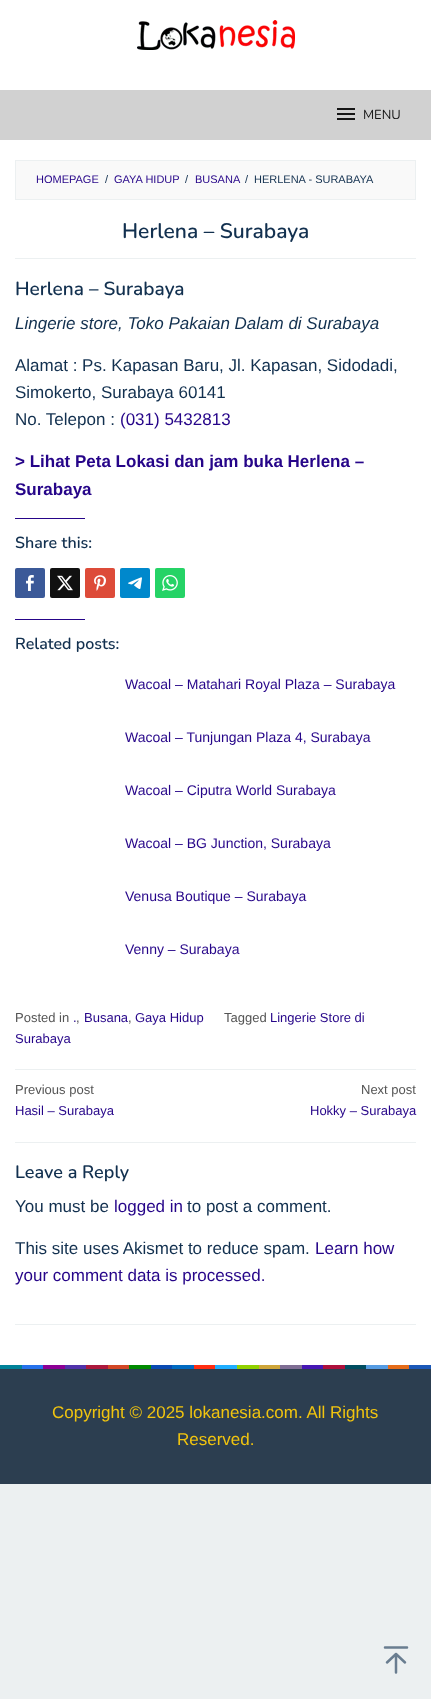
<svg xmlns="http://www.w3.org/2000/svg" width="431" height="1699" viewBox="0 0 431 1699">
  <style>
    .t1 { font: 13px Nunito; fill: #161616; }
    .t2 { font: 11px Liberation Sans; fill: #260589; }
    .t3 { font: 11px Liberation Sans; fill: #12304f; }
    .t4 { font: 600 21px Nunito; fill: #12304f; }
    .t5 { font: 600 19px Nunito; fill: #12304f; }
    .t6 { font: italic 17px Liberation Sans; fill: #12304f; }
    .t7 { font: 17px Liberation Sans; fill: #12304f; }
    .t8 { font: 17px Liberation Sans; fill: #260589; }
    .t9 { font: bold 17px Liberation Sans; fill: #260589; }
    .t10 { font: 600 16px Nunito; fill: #12304f; }
    .t11 { font: 14px Liberation Sans; fill: #260589; }
    .t12 { font: 13px Liberation Sans; fill: #555; }
    .t13 { font: 13px Liberation Sans; fill: #260589; }
    .t14 { font: 600 18px Nunito; fill: #12304f; }
    .t15 { font: 17px Liberation Sans; fill: #f1c40f; }
  </style>
  <rect width="100%" height="100%" fill="#ecf0f1"/>
  <rect x="0" y="0" width="431" height="90" fill="#fff"/>
  <image x="137" y="20" width="158" height="30" href="images/1.png"/>
  <rect x="0" y="90" width="431" height="50" fill="#d1d1d1"/>
  <image x="337" y="108" width="18" height="12" href="images/2.png"/>
  <text x="363" y="119" class="t1">MENU</text>
  <rect x="0" y="140" width="431" height="1225" fill="#fff"/>
  <rect x="15.5" y="160.5" width="400" height="39" fill="#f9f9f9" stroke="#ecf0f1"/>
  <text x="36" y="183" class="t2">HOMEPAGE</text>
  <text x="105" y="183" class="t3">/</text>
  <text x="114" y="183" class="t2">GAYA HIDUP</text>
  <text x="185" y="183" class="t3">/</text>
  <text x="195" y="183" class="t2">BUSANA</text>
  <text x="245" y="183" class="t3">/</text>
  <text x="254" y="183" class="t3">HERLENA - SURABAYA</text>
  <rect x="15" y="1142" width="401" height="1" fill="#ecf0f1"/>
  <rect x="15" y="258" width="401" height="1" fill="#ecf0f1"/>
  <text x="122" y="238" class="t4">Herlena – Surabaya</text>
  <text x="15" y="295" class="t5">Herlena – Surabaya</text>
  <text x="15" y="329" class="t6">Lingerie store, Toko Pakaian Dalam di Surabaya</text>
  <text x="15" y="371" class="t7">Alamat : Ps. Kapasan Baru, Jl. Kapasan, Sidodadi,</text>
  <text x="15" y="398" class="t7">Simokerto, Surabaya 60141</text>
  <text x="15" y="425" class="t7">No. Telepon :</text>
  <text x="120" y="425" class="t8">(031) 5432813</text>
  <text x="15" y="467" class="t9">&gt; Lihat Peta Lokasi dan jam buka Herlena –</text>
  <text x="15" y="495" class="t9">Surabaya</text>
  <rect x="15" y="518" width="70" height="1" fill="#260589"/>
  <text x="15" y="548" class="t10">Share this:</text>
  <rect x="15" y="568" width="30" height="30" rx="2" fill="#3b5998"/>
  <image x="26" y="575" width="8" height="16" href="images/3.png"/>
  <rect x="50" y="568" width="30" height="30" rx="2" fill="#111"/>
  <image x="57" y="575" width="16" height="16" href="images/4.png"/>
  <rect x="85" y="568" width="30" height="30" rx="2" fill="#dd4b39"/>
  <image x="94" y="575" width="12" height="16" href="images/5.png"/>
  <rect x="120" y="568" width="30" height="30" rx="2" fill="#08c"/>
  <image x="128" y="577" width="14" height="12" href="images/6.png"/>
  <rect x="155" y="568" width="30" height="30" rx="2" fill="#25d366"/>
  <image x="162" y="575" width="16" height="16" href="images/7.png"/>
  <rect x="15" y="619" width="70" height="1" fill="#260589"/>
  <text x="15" y="649" class="t10">Related posts:</text>
  <text x="125" y="689" class="t11">Wacoal – Matahari Royal Plaza – Surabaya</text>
  <text x="125" y="742" class="t11">Wacoal – Tunjungan Plaza 4, Surabaya</text>
  <text x="125" y="795" class="t11">Wacoal – Ciputra World Surabaya</text>
  <text x="125" y="848" class="t11">Wacoal – BG Junction, Surabaya</text>
  <text x="125" y="901" class="t11">Venusa Boutique – Surabaya</text>
  <text x="125" y="954" class="t11">Venny – Surabaya</text>
  <text x="15" y="1022" class="t12">Posted in</text>
  <text x="73" y="1022" class="t13">.</text>
  <text x="76" y="1022" class="t12">,</text>
  <text x="84" y="1022" class="t13">Busana</text>
  <text x="128" y="1022" class="t12">,</text>
  <text x="135" y="1022" class="t13">Gaya Hidup</text>
  <text x="224" y="1022" class="t12">Tagged</text>
  <text x="270" y="1022" class="t13">Lingerie Store di</text>
  <text x="15" y="1043" class="t13">Surabaya</text>
  <rect x="15" y="1069" width="401" height="1" fill="#ecf0f1"/>
  <text x="15" y="1094" class="t12">Previous post</text>
  <text x="15" y="1115" class="t13">Hasil – Surabaya</text>
  <text x="361" y="1094" class="t12">Next post</text>
  <text x="310" y="1115" class="t13">Hokky – Surabaya</text>
  <rect x="15" y="1324" width="401" height="1" fill="#ecf0f1"/>
  <text x="15" y="1178" class="t14">Leave a Reply</text>
  <text x="15" y="1212" class="t7">You must be</text>
  <text x="114" y="1212" class="t8">logged in</text>
  <text x="187" y="1212" class="t7">to post a comment.</text>
  <text x="15" y="1254" class="t7">This site uses Akismet to reduce spam.</text>
  <text x="315" y="1254" class="t8">Learn how</text>
  <text x="15" y="1281" class="t8">your comment data is processed.</text>
  <rect x="0" y="1365" width="22" height="4" fill="#008299"/>
  <rect x="22" y="1365" width="21" height="4" fill="#2672ec"/>
  <rect x="43" y="1365" width="22" height="4" fill="#8c0095"/>
  <rect x="65" y="1365" width="21" height="4" fill="#5133ab"/>
  <rect x="86" y="1365" width="22" height="4" fill="#ac193d"/>
  <rect x="108" y="1365" width="21" height="4" fill="#d24726"/>
  <rect x="129" y="1365" width="22" height="4" fill="#008a00"/>
  <rect x="151" y="1365" width="21" height="4" fill="#094ab2"/>
  <rect x="172" y="1365" width="22" height="4" fill="#006ac1"/>
  <rect x="194" y="1365" width="21" height="4" fill="#ff2e12"/>
  <rect x="215" y="1365" width="22" height="4" fill="#1faeff"/>
  <rect x="237" y="1365" width="22" height="4" fill="#91d100"/>
  <rect x="259" y="1365" width="21" height="4" fill="#cea539"/>
  <rect x="280" y="1365" width="22" height="4" fill="#7f6e94"/>
  <rect x="302" y="1365" width="21" height="4" fill="#4617b4"/>
  <rect x="323" y="1365" width="22" height="4" fill="#ad103c"/>
  <rect x="345" y="1365" width="21" height="4" fill="#004d60"/>
  <rect x="366" y="1365" width="22" height="4" fill="#569ce3"/>
  <rect x="388" y="1365" width="21" height="4" fill="#e56c19"/>
  <rect x="409" y="1365" width="22" height="4" fill="#1b58b8"/>
  <rect x="0" y="1369" width="431" height="115" fill="#2c3e50"/>
  <text x="52" y="1418" class="t15">Copyright © 2025 lokanesia.com. All Rights</text>
  <text x="177" y="1445" class="t15">Reserved.</text>
  <path d="M396 1672.5V1654M387 1662.5L396 1654L405 1662.5M385 1647.5H407" fill="none" stroke="#697d90" stroke-width="2.5" stroke-linecap="round" stroke-linejoin="round"/>
</svg>
